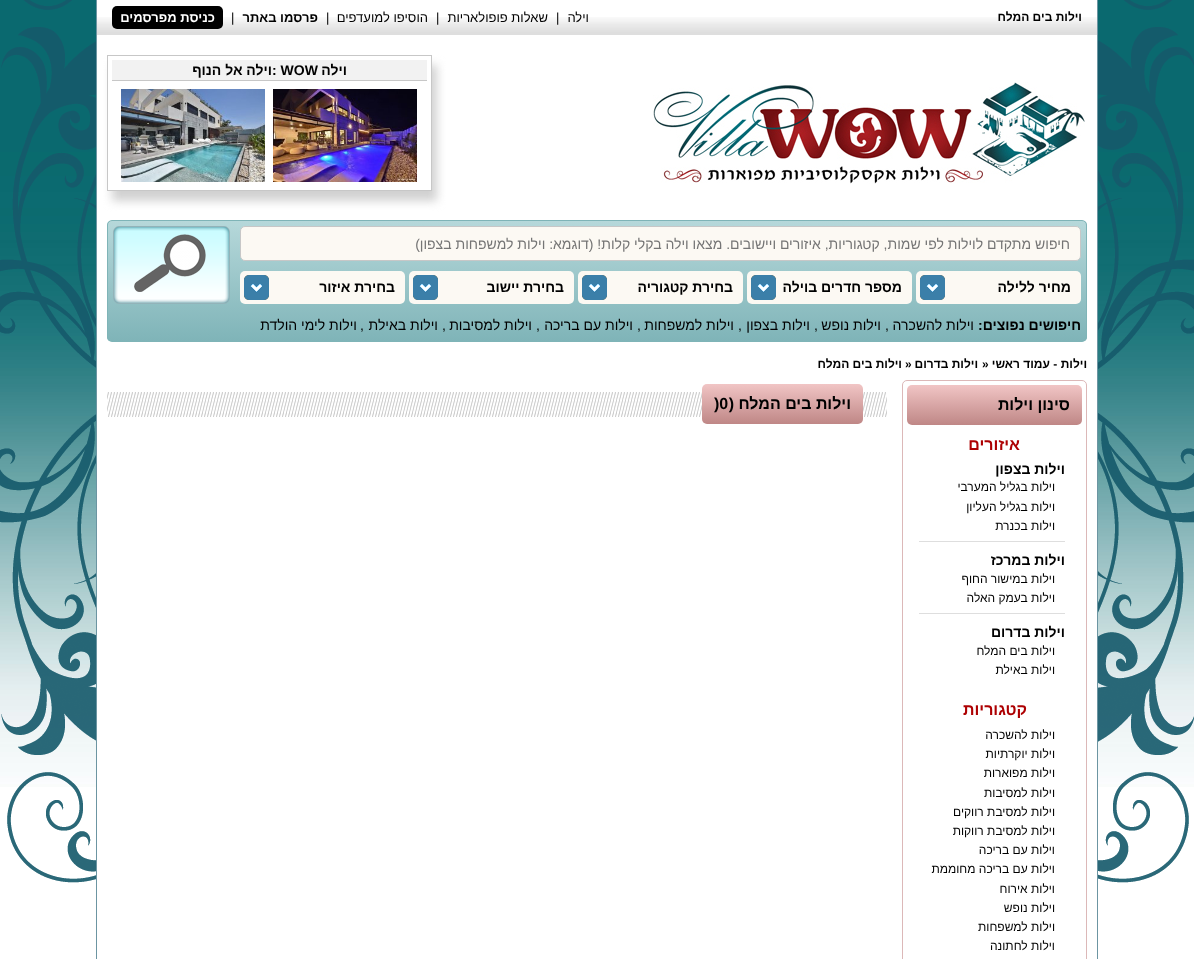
<svg xmlns="http://www.w3.org/2000/svg" width="1194" height="959" viewBox="0 0 1194 959">
  <style>
    .t1 { font: bold 12px Liberation Sans; direction: rtl; fill: #000; }
    .t2 { font: 13px Liberation Sans; direction: rtl; fill: #000; }
    .t3 { font: 13px Liberation Sans; fill: #000; }
    .t4 { font: bold 13px Liberation Sans; direction: rtl; fill: #000; }
    .t5 { font: bold 13px Liberation Sans; direction: rtl; fill: #fff; }
    .t6 { font: bold 14px Liberation Sans; direction: rtl; fill: #000; }
    .t7 { font: bold 14px Liberation Sans; fill: #000; }
    .t8 { font: 14px Liberation Sans; direction: rtl; fill: #757575; }
    .t9 { font: 14px Liberation Sans; direction: rtl; fill: #000; }
    .t10 { font: 14px Liberation Sans; fill: #000; }
    .t11 { font: bold 12px Liberation Sans; fill: #000; }
    .t12 { font: bold 16px Liberation Sans; direction: rtl; fill: #000; }
    .t13 { font: bold 16px Liberation Sans; direction: rtl; fill: #ad0002; }
    .t14 { font: 12px Liberation Sans; direction: rtl; fill: #000; }
    .t15 { font: bold 16px Liberation Sans; fill: #000; }
  </style>
  <defs>
    <clipPath id="clip1"><path d="M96 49H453V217H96ZM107 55H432V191H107Z" clip-rule="evenodd"/></clipPath>
    <clipPath id="clip2"><rect x="107" y="220" width="980" height="122" rx="5"/></clipPath>
    <linearGradient id="g1" gradientUnits="userSpaceOnUse" x1="597" y1="341" x2="597" y2="221"><stop offset="0" stop-color="#7fb4b8"/><stop offset="1" stop-color="#b6d8da"/></linearGradient>
    <linearGradient id="g2" gradientUnits="userSpaceOnUse" x1="995" y1="425" x2="995" y2="385"><stop offset="0" stop-color="#bf8786"/><stop offset="1" stop-color="#f1c5c5"/></linearGradient>
    <linearGradient id="g3" gradientUnits="userSpaceOnUse" x1="783" y1="424" x2="783" y2="384"><stop offset="0" stop-color="#bf8786"/><stop offset="1" stop-color="#f1c5c5"/></linearGradient>
  </defs>
  <rect width="100%" height="100%" fill="#fff"/>
  <image x="0" y="0" width="1194" height="787" href="images/1.png"/>
  <image x="0" y="0" width="1194" height="883" href="images/2.png"/>
  <rect x="97" y="0" width="1000" height="879" fill="#fff"/>
  <rect x="1097" y="0" width="1" height="959" fill="#6c95a2"/>
  <rect x="96" y="0" width="1" height="959" fill="#6c95a2"/>
  <image x="97" y="17" width="1000" height="18" href="images/3.png"/>
  <text x="1082" y="21" class="t1">וילות בים המלח</text>
  <text x="589" y="22" class="t2">וילה</text>
  <text x="556" y="22" class="t3">|</text>
  <text x="548" y="22" class="t2">שאלות פופולאריות</text>
  <text x="436" y="22" class="t3">|</text>
  <text x="428" y="22" class="t2">הוסיפו למועדפים</text>
  <text x="326" y="22" class="t3">|</text>
  <text x="318" y="22" class="t4">פרסמו באתר</text>
  <text x="231" y="22" class="t3">|</text>
  <rect x="112" y="6" width="111" height="23" rx="5" fill="#000"/>
  <text x="215" y="22" class="t5">כניסת מפרסמים</text>
  <g clip-path="url(#clip1)">
    <rect x="112" y="65" width="325" height="136" fill="#d1d1d1" filter="blur(5px)"/>
  </g>
  <rect x="107.5" y="55.5" width="324" height="135" fill="none" stroke="#c7c7c7"/>
  <rect x="112" y="60" width="315" height="20" fill="#f2f2f2"/>
  <rect x="112" y="80" width="315" height="1" fill="#c7c7c7"/>
  <text x="347" y="75" class="t6">וילה</text>
  <text x="272" y="75" class="t7">: WOW</text>
  <text x="272" y="75" class="t6">וילה אל הנוף</text>
  <image x="273" y="89" width="144" height="93" href="images/4.png"/>
  <image x="121" y="89" width="144" height="93" href="images/5.png"/>
  <image x="653" y="82" width="432" height="102" href="images/6.png"/>
  <g clip-path="url(#clip2)">
    <rect x="107" y="221" width="980" height="120" fill="url(#g1)"/>
  </g>
  <rect x="107.5" y="220.5" width="979" height="121" rx="4.5" fill="none" stroke="#7fb4b7"/>
  <rect x="240.5" y="226.5" width="840" height="34" rx="4.5" fill="#fcf9f3" stroke="#c7c7c7"/>
  <text x="1070" y="249" class="t8">חיפוש מתקדם לוילות לפי שמות, קטגוריות, איזורים ויישובים. מצאו וילה בקלי קלות! (דוגמא: וילות למשפחות בצפון)</text>
  <image x="113" y="226" width="117" height="78" href="images/7.png"/>
  <rect x="916" y="271" width="165" height="33" rx="5" fill="#fcf9f3"/>
  <image x="920" y="275" width="25" height="25" href="images/8.png"/>
  <text x="1071" y="292" class="t6">מחיר ללילה</text>
  <rect x="747" y="271" width="165" height="33" rx="5" fill="#fcf9f3"/>
  <image x="751" y="275" width="25" height="25" href="images/8.png"/>
  <text x="902" y="292" class="t6">מספר חדרים בוילה</text>
  <rect x="578" y="271" width="165" height="33" rx="5" fill="#fcf9f3"/>
  <image x="582" y="275" width="25" height="25" href="images/8.png"/>
  <text x="733" y="292" class="t6">בחירת קטגוריה</text>
  <rect x="409" y="271" width="165" height="33" rx="5" fill="#fcf9f3"/>
  <image x="413" y="275" width="25" height="25" href="images/8.png"/>
  <text x="564" y="292" class="t6">בחירת יישוב</text>
  <rect x="240" y="271" width="165" height="33" rx="5" fill="#fcf9f3"/>
  <image x="244" y="275" width="25" height="25" href="images/8.png"/>
  <text x="395" y="292" class="t6">בחירת איזור</text>
  <text x="1081" y="330" class="t6">חיפושים נפוצים:</text>
  <text x="974" y="330" class="t9">וילות להשכרה</text>
  <text x="885" y="330" class="t10">,</text>
  <text x="881" y="330" class="t9">וילות נופש</text>
  <text x="814" y="330" class="t10">,</text>
  <text x="810" y="330" class="t9">וילות בצפון</text>
  <text x="738" y="330" class="t10">,</text>
  <text x="734" y="330" class="t9">וילות למשפחות</text>
  <text x="637" y="330" class="t10">,</text>
  <text x="633" y="330" class="t9">וילות עם בריכה</text>
  <text x="536" y="330" class="t10">,</text>
  <text x="532" y="330" class="t9">וילות למסיבות</text>
  <text x="442" y="330" class="t10">,</text>
  <text x="438" y="330" class="t9">וילות באילת</text>
  <text x="360" y="330" class="t10">,</text>
  <text x="357" y="330" class="t9">וילות לימי הולדת</text>
  <text x="1087" y="368" class="t1">וילות - עמוד ראשי</text>
  <text x="982" y="368" class="t11">»</text>
  <text x="978" y="368" class="t1">וילות בדרום</text>
  <text x="905" y="368" class="t11">»</text>
  <text x="902" y="368" class="t1">וילות בים המלח</text>
  <rect x="902.5" y="380.5" width="184" height="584" rx="4.5" fill="none" stroke="#dcb8b8"/>
  <rect x="907" y="385" width="175" height="40" rx="5" fill="url(#g2)"/>
  <text x="1070" y="410" class="t12">סינון וילות</text>
  <text x="1020" y="450" class="t13">איזורים</text>
  <text x="1065" y="474" class="t6">וילות בצפון</text>
  <text x="1055" y="491" class="t14">וילות בגליל המערבי</text>
  <text x="1055" y="511" class="t14">וילות בגליל העליון</text>
  <text x="1055" y="530" class="t14">וילות בכנרת</text>
  <rect x="919" y="541" width="146" height="1" fill="#dedede"/>
  <text x="1065" y="565" class="t6">וילות במרכז</text>
  <text x="1055" y="583" class="t14">וילות במישור החוף</text>
  <text x="1055" y="602" class="t14">וילות בעמק האלה</text>
  <rect x="919" y="613" width="146" height="1" fill="#dedede"/>
  <text x="1065" y="637" class="t6">וילות בדרום</text>
  <text x="1055" y="655" class="t14">וילות בים המלח</text>
  <text x="1055" y="674" class="t14">וילות באילת</text>
  <text x="1027" y="715" class="t13">קטגוריות</text>
  <text x="1055" y="739" class="t14">וילות להשכרה</text>
  <text x="1055" y="758" class="t14">וילות יוקרתיות</text>
  <text x="1055" y="777" class="t14">וילות מפוארות</text>
  <text x="1055" y="797" class="t14">וילות למסיבות</text>
  <text x="1055" y="816" class="t14">וילות למסיבת רווקים</text>
  <text x="1055" y="835" class="t14">וילות למסיבת רווקות</text>
  <text x="1055" y="854" class="t14">וילות עם בריכה</text>
  <text x="1055" y="873" class="t14">וילות עם בריכה מחוממת</text>
  <text x="1055" y="893" class="t14">וילות אירוח</text>
  <text x="1055" y="912" class="t14">וילות נופש</text>
  <text x="1055" y="931" class="t14">וילות למשפחות</text>
  <text x="1055" y="950" class="t14">וילות לחתונה</text>
  <image x="107" y="392" width="780" height="25" href="images/9.png"/>
  <rect x="702" y="384" width="161" height="40" rx="5" fill="url(#g3)"/>
  <text x="851" y="409" class="t12">וילות בים המלח (</text>
  <text x="714" y="409" class="t15">)0</text>
</svg>
